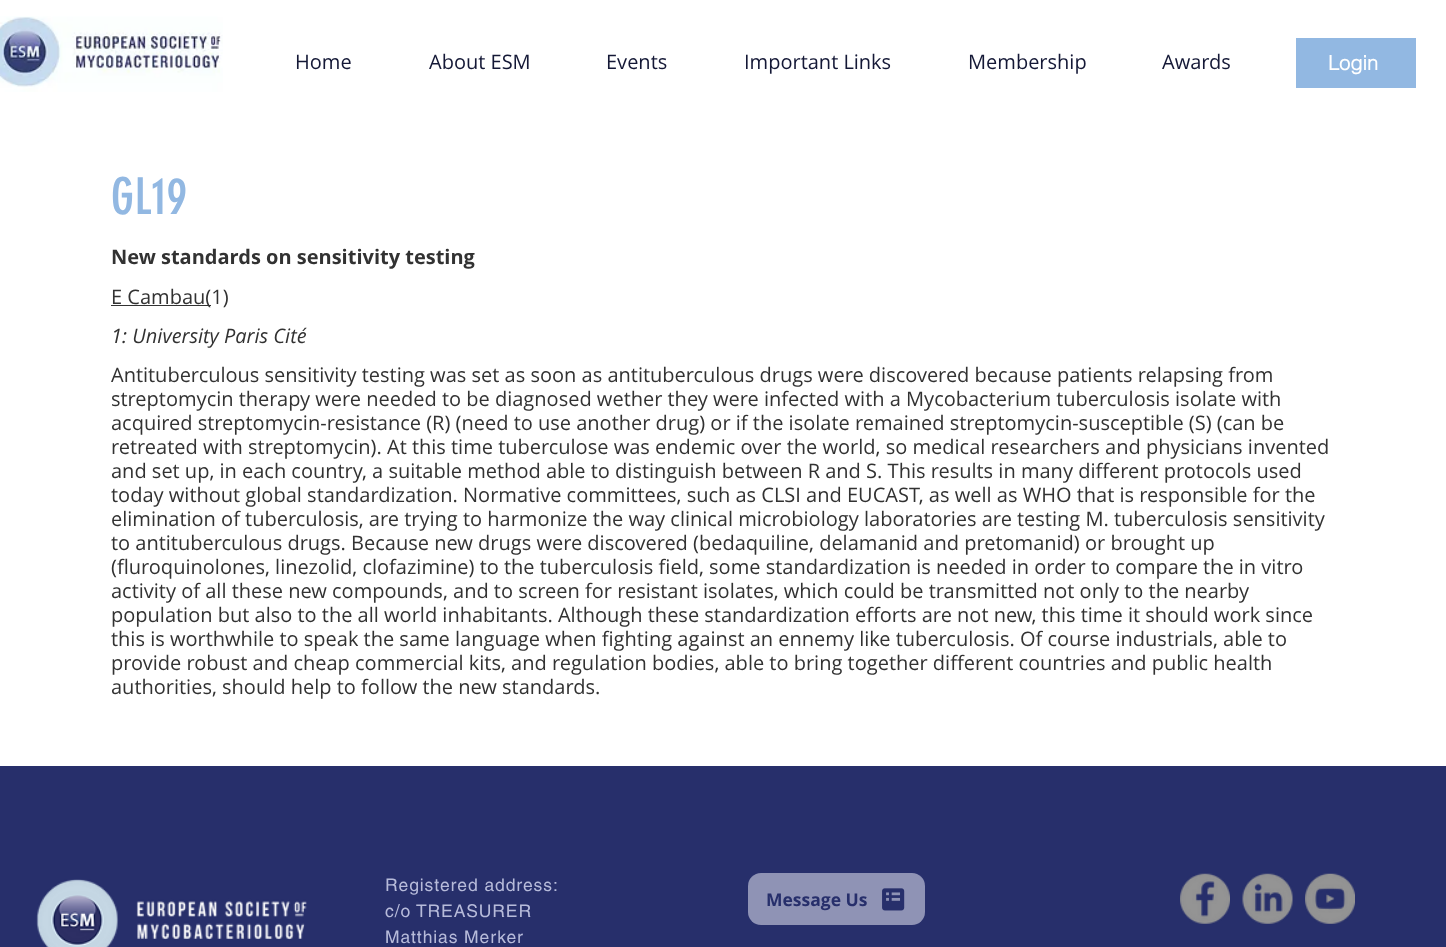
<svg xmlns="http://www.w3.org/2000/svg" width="1446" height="947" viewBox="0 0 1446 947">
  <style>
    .t1 { font: 20px Open Sans; fill: #141836; }
    .t2 { font: bold 20px helvetica; fill: #fff; }
    .t3 { font: 50px 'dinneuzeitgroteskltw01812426'; fill: #92b8e2; }
    .t4 { font: bold 20px Open Sans; fill: #323232; }
    .t5 { font: 20px Open Sans; fill: #323232; }
    .t6 { font: italic 20px Open Sans; fill: #323232; }
    .t7 { font: 17.5px helvetica; letter-spacing: 0.9px; fill: #b7bbda; }
    .t8 { font: bold 17.5px Open Sans; fill: #272f6b; }
  </style>
  <rect width="100%" height="100%" fill="#fff"/>
  <image x="0" y="16" width="223" height="76" href="images/1.png"/>
  <text x="295" y="69" class="t1">Home</text>
  <text x="429" y="69" class="t1">About ESM</text>
  <text x="606" y="69" class="t1">Events</text>
  <text x="744" y="69" class="t1">Important Links</text>
  <text x="968" y="69" class="t1">Membership</text>
  <text x="1162" y="69" class="t1">Awards</text>
  <rect x="1296" y="38" width="120" height="50" fill="#92b8e2"/>
  <text x="1328" y="70" class="t2">Login</text>
  <text x="111" y="214" class="t3">GL19</text>
  <text x="111" y="264" class="t4">New standards on sensitivity testing</text>
  <rect x="111" y="305" width="100" height="1" fill="#323232"/>
  <text x="111" y="304" class="t5">E Cambau(1)</text>
  <text x="111" y="343" class="t6">1: University Paris Cité</text>
  <text x="111" y="382" class="t5">Antituberculous sensitivity testing was set as soon as antituberculous drugs were discovered because patients relapsing from</text>
  <text x="111" y="406" class="t5">streptomycin therapy were needed to be diagnosed wether they were infected with a Mycobacterium tuberculosis isolate with</text>
  <text x="111" y="430" class="t5">acquired streptomycin-resistance (R) (need to use another drug) or if the isolate remained streptomycin-susceptible (S) (can be</text>
  <text x="111" y="454" class="t5">retreated with streptomycin). At this time tuberculose was endemic over the world, so medical researchers and physicians invented</text>
  <text x="111" y="478" class="t5">and set up, in each country, a suitable method able to distinguish between R and S. This results in many different protocols used</text>
  <text x="111" y="502" class="t5">today without global standardization. Normative committees, such as CLSI and EUCAST, as well as WHO that is responsible for the</text>
  <text x="111" y="526" class="t5">elimination of tuberculosis, are trying to harmonize the way clinical microbiology laboratories are testing M. tuberculosis sensitivity</text>
  <text x="111" y="550" class="t5">to antituberculous drugs. Because new drugs were discovered (bedaquiline, delamanid and pretomanid) or brought up</text>
  <text x="111" y="574" class="t5">(fluroquinolones, linezolid, clofazimine) to the tuberculosis field, some standardization is needed in order to compare the in vitro</text>
  <text x="111" y="598" class="t5">activity of all these new compounds, and to screen for resistant isolates, which could be transmitted not only to the nearby</text>
  <text x="111" y="622" class="t5">population but also to the all world inhabitants. Although these standardization efforts are not new, this time it should work since</text>
  <text x="111" y="646" class="t5">this is worthwhile to speak the same language when fighting against an ennemy like tuberculosis. Of course industrials, able to</text>
  <text x="111" y="670" class="t5">provide robust and cheap commercial kits, and regulation bodies, able to bring together different countries and public health</text>
  <text x="111" y="694" class="t5">authorities, should help to follow the new standards.</text>
  <rect x="0" y="766" width="1446" height="181" fill="#272f6b"/>
  <image x="36" y="879" width="271" height="68" href="images/2.png"/>
  <text x="385" y="891" class="t7">Registered address:</text>
  <text x="385" y="917" class="t7">c/o TREASURER</text>
  <text x="385" y="943" class="t7">Matthias Merker</text>
  <rect x="748" y="873" width="177" height="52" rx="13" fill="#8f93b5"/>
  <text x="766" y="906" class="t8">Message Us</text>
  <image x="882" y="888" width="23" height="23" href="images/3.png"/>
  <image x="1180" y="873" width="50" height="51" href="images/4.png"/>
  <image x="1242" y="873" width="51" height="51" href="images/5.png"/>
  <image x="1305" y="873" width="50" height="51" href="images/6.png"/>
</svg>
